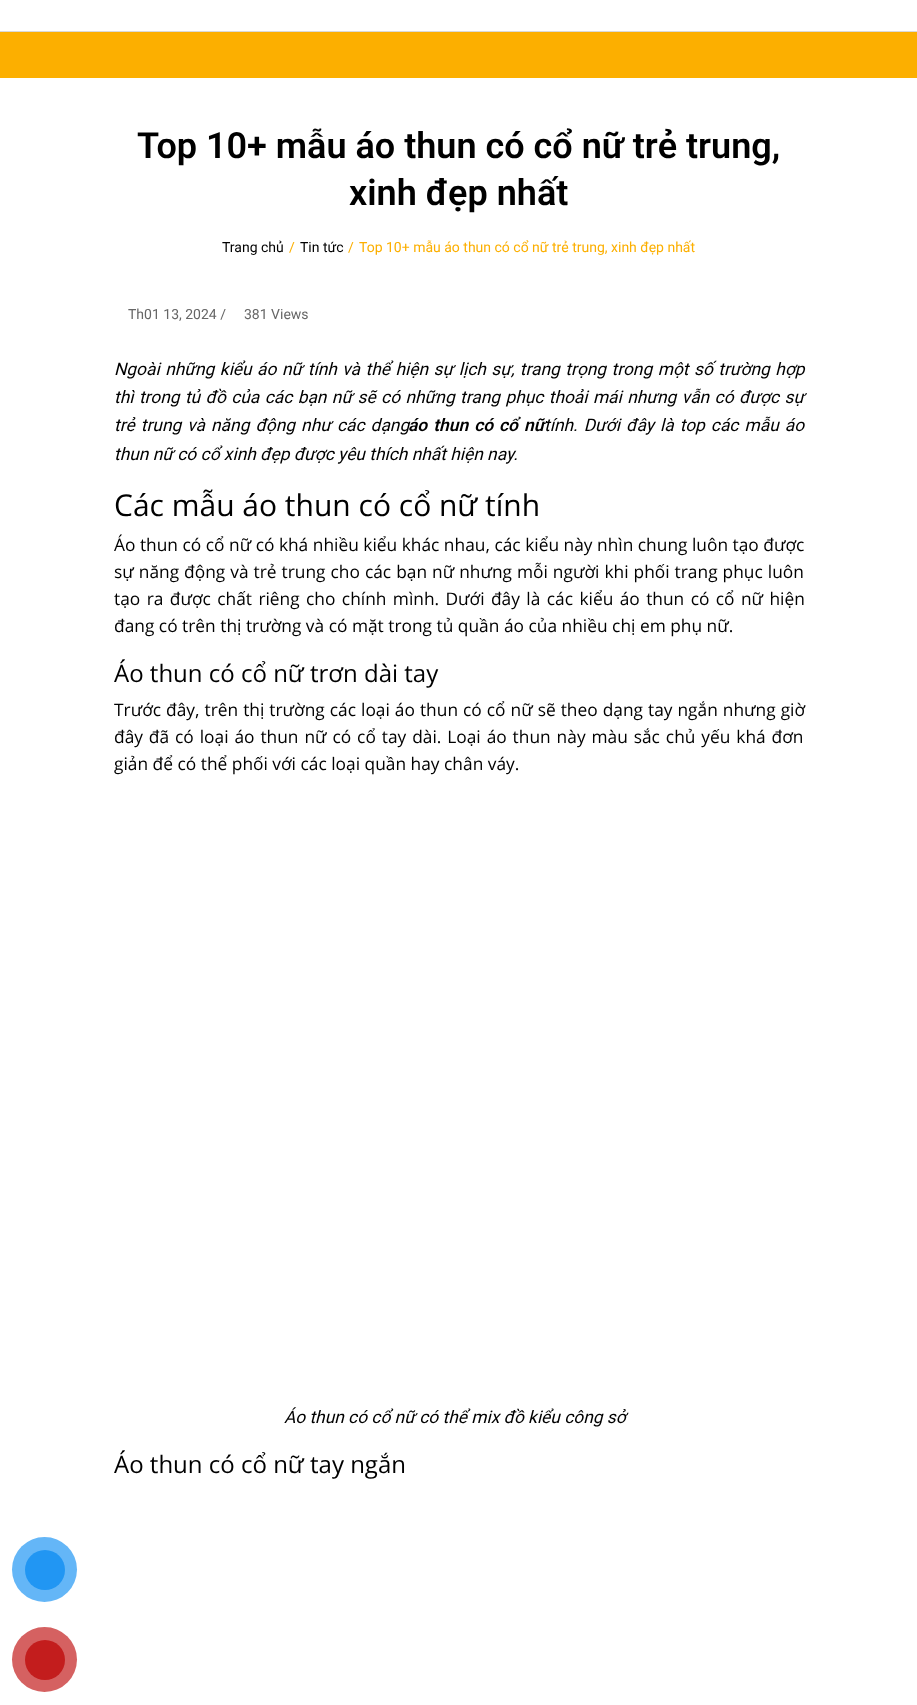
<svg xmlns="http://www.w3.org/2000/svg" width="917" height="1705" viewBox="0 0 917 1705">
  <style>
    .t1 { font: 600 36px Roboto; fill: #000; }
    .t2 { font: 14px Roboto; fill: #000; }
    .t3 { font: 14px Roboto; fill: #fcaf00; }
    .t4 { font: 14px Roboto; fill: #666; }
    .t5 { font: italic 17.35px Roboto; fill: #000; }
    .t6 { font: italic 600 17.35px Roboto; fill: #000; }
    .t7 { font: 30px Open Sans; fill: #000; }
    .t8 { font: 17.35px Open Sans; fill: #000; }
    .t9 { font: 24px Open Sans; fill: #000; }
  </style>
  <rect width="100%" height="100%" fill="#fff"/>
  <rect x="0" y="32" width="917" height="46" fill="#fcaf00"/>
  <rect x="0" y="31" width="917" height="1" fill="#d9d9d9"/>
  <text x="137" y="158" class="t1">Top 10+ mẫu áo thun có cổ nữ trẻ trung,</text>
  <text x="349" y="205" class="t1">xinh đẹp nhất</text>
  <text x="222" y="252" class="t2">Trang chủ</text>
  <text x="289" y="252" class="t3">/</text>
  <text x="300" y="252" class="t2">Tin tức</text>
  <text x="348" y="252" class="t3">/</text>
  <text x="359" y="252" class="t3">Top 10+ mẫu áo thun có cổ nữ trẻ trung, xinh đẹp nhất</text>
  <text x="128" y="319" class="t4">Th01 13, 2024 /</text>
  <text x="244" y="319" class="t4">381 Views</text>
  <text x="114" y="375" word-spacing="1.2" class="t5">Ngoài những kiểu áo nữ tính và thể hiện sự lịch sự, trang trọng trong một số trường hợp</text>
  <text x="114" y="403" word-spacing="1.1" class="t5">thì trong tủ đồ của các bạn nữ sẽ có những trang phục thoải mái nhưng vẫn có được sự</text>
  <text x="114" y="431" word-spacing="1.75" class="t5">trẻ trung và năng động như các dạng</text>
  <text x="544" y="431" word-spacing="1.75" class="t5">tính. Dưới đây là top các mẫu áo</text>
  <text x="408" y="431" word-spacing="1.75" class="t6">áo thun có cổ nữ</text>
  <text x="114" y="460" class="t5">thun nữ có cổ xinh đẹp được yêu thích nhất hiện nay.</text>
  <text x="114" y="516" class="t7">Các mẫu áo thun có cổ nữ tính</text>
  <text x="114" y="551" class="t8">Áo thun có cổ nữ có khá nhiều kiểu khác nhau, các kiểu này nhìn chung luôn tạo được</text>
  <text x="114" y="578" word-spacing="0.5" class="t8">sự năng động và trẻ trung cho các bạn nữ nhưng mỗi người khi phối trang phục luôn</text>
  <text x="114" y="605" word-spacing="1.9" class="t8">tạo ra được chất riêng cho chính mình. Dưới đây là các kiểu áo thun có cổ nữ hiện</text>
  <text x="114" y="632" class="t8">đang có trên thị trường và có mặt trong tủ quần áo của nhiều chị em phụ nữ.</text>
  <text x="114" y="682" class="t9">Áo thun có cổ nữ trơn dài tay</text>
  <text x="114" y="716" word-spacing="0.5" class="t8">Trước đây, trên thị trường các loại áo thun có cổ nữ sẽ theo dạng tay ngắn nhưng giờ</text>
  <text x="114" y="743" word-spacing="1.4" class="t8">đây đã có loại áo thun nữ có cổ tay dài. Loại áo thun này màu sắc chủ yếu khá đơn</text>
  <text x="114" y="770" class="t8">giản để có thể phối với các loại quần hay chân váy.</text>
  <text x="284" y="1423" class="t5">Áo thun có cổ nữ có thể mix đồ kiểu công sở</text>
  <text x="114" y="1473" class="t9">Áo thun có cổ nữ tay ngắn</text>
  <circle cx="44.5" cy="1569.5" r="32.5" fill="#64b6f7"/>
  <circle cx="45" cy="1570" r="20" fill="#2196f3"/>
  <circle cx="44.5" cy="1659.5" r="32.5" fill="#d56161"/>
  <circle cx="45" cy="1660" r="20" fill="#c31d1d"/>
</svg>
